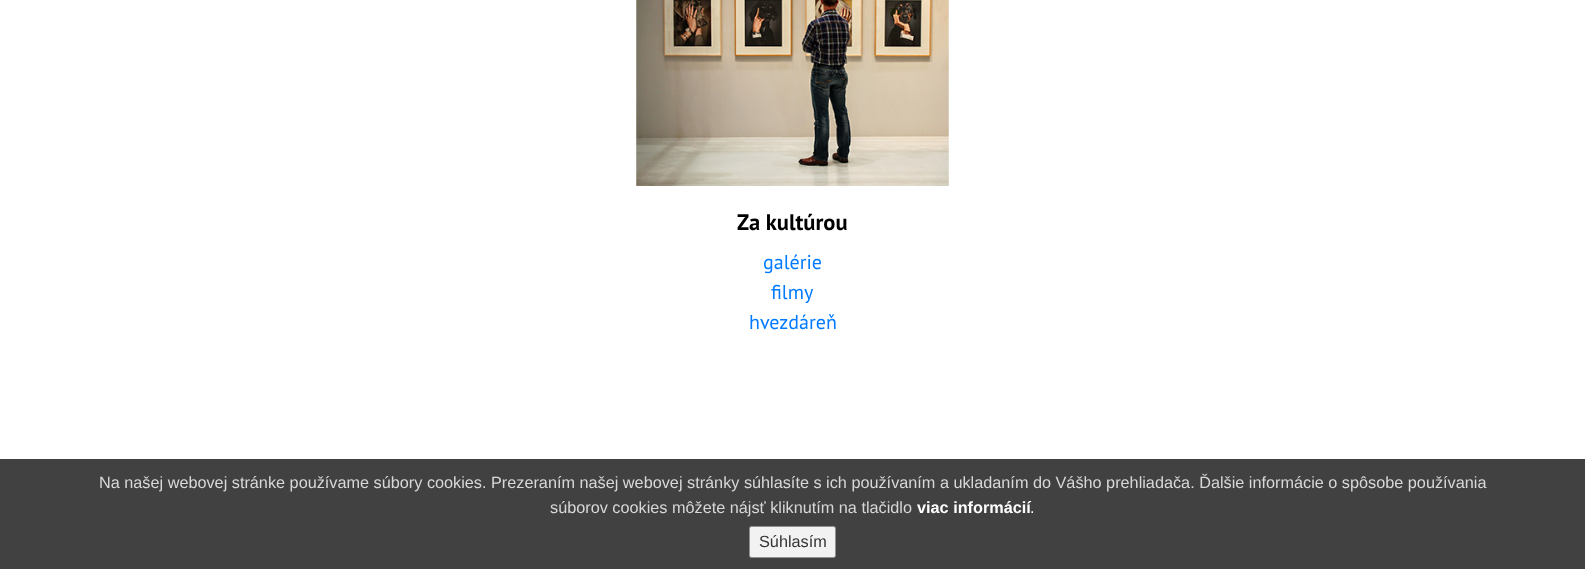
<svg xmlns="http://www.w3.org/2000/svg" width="1585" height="569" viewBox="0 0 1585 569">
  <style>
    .t1 { font: bold 22.5px PT Sans; fill: #000; }
    .t2 { font: 20px PT Sans; fill: #007bff; }
    .t3 { font: 16.25px Liberation Sans; fill: #d8d8d9; }
    .t4 { font: bold 16.25px Liberation Sans; fill: #fff; }
    .t5 { font: 16.25px Liberation Sans; fill: #fff; }
    .t6 { font: 16.25px Liberation Sans; fill: #333; }
  </style>
  <rect width="100%" height="100%" fill="#fff"/>
  <image x="636" y="0" width="313" height="186" href="images/1.png"/>
  <text x="737" y="230" class="t1">Za kultúrou</text>
  <text x="763" y="269" class="t2">galérie</text>
  <text x="771" y="299" class="t2">filmy</text>
  <text x="749" y="329" class="t2">hvezdáreň</text>
  <rect x="0" y="459" width="1585" height="110" fill="#111111cc"/>
  <text x="99" y="488" class="t3">Na našej webovej stránke používame súbory cookies. Prezeraním našej webovej stránky súhlasíte s ich používaním a ukladaním do Vášho prehliadača. Ďalšie informácie o spôsobe používania</text>
  <text x="550" y="513" class="t3">súborov cookies môžete nájsť kliknutím na tlačidlo</text>
  <text x="917" y="513" class="t4">viac informácií</text>
  <text x="1030" y="513" class="t5">.</text>
  <rect x="749.5" y="526.5" width="86" height="31" rx="2" fill="#f2f2f2" stroke="#919191"/>
  <text x="759" y="547" class="t6">Súhlasím</text>
</svg>
